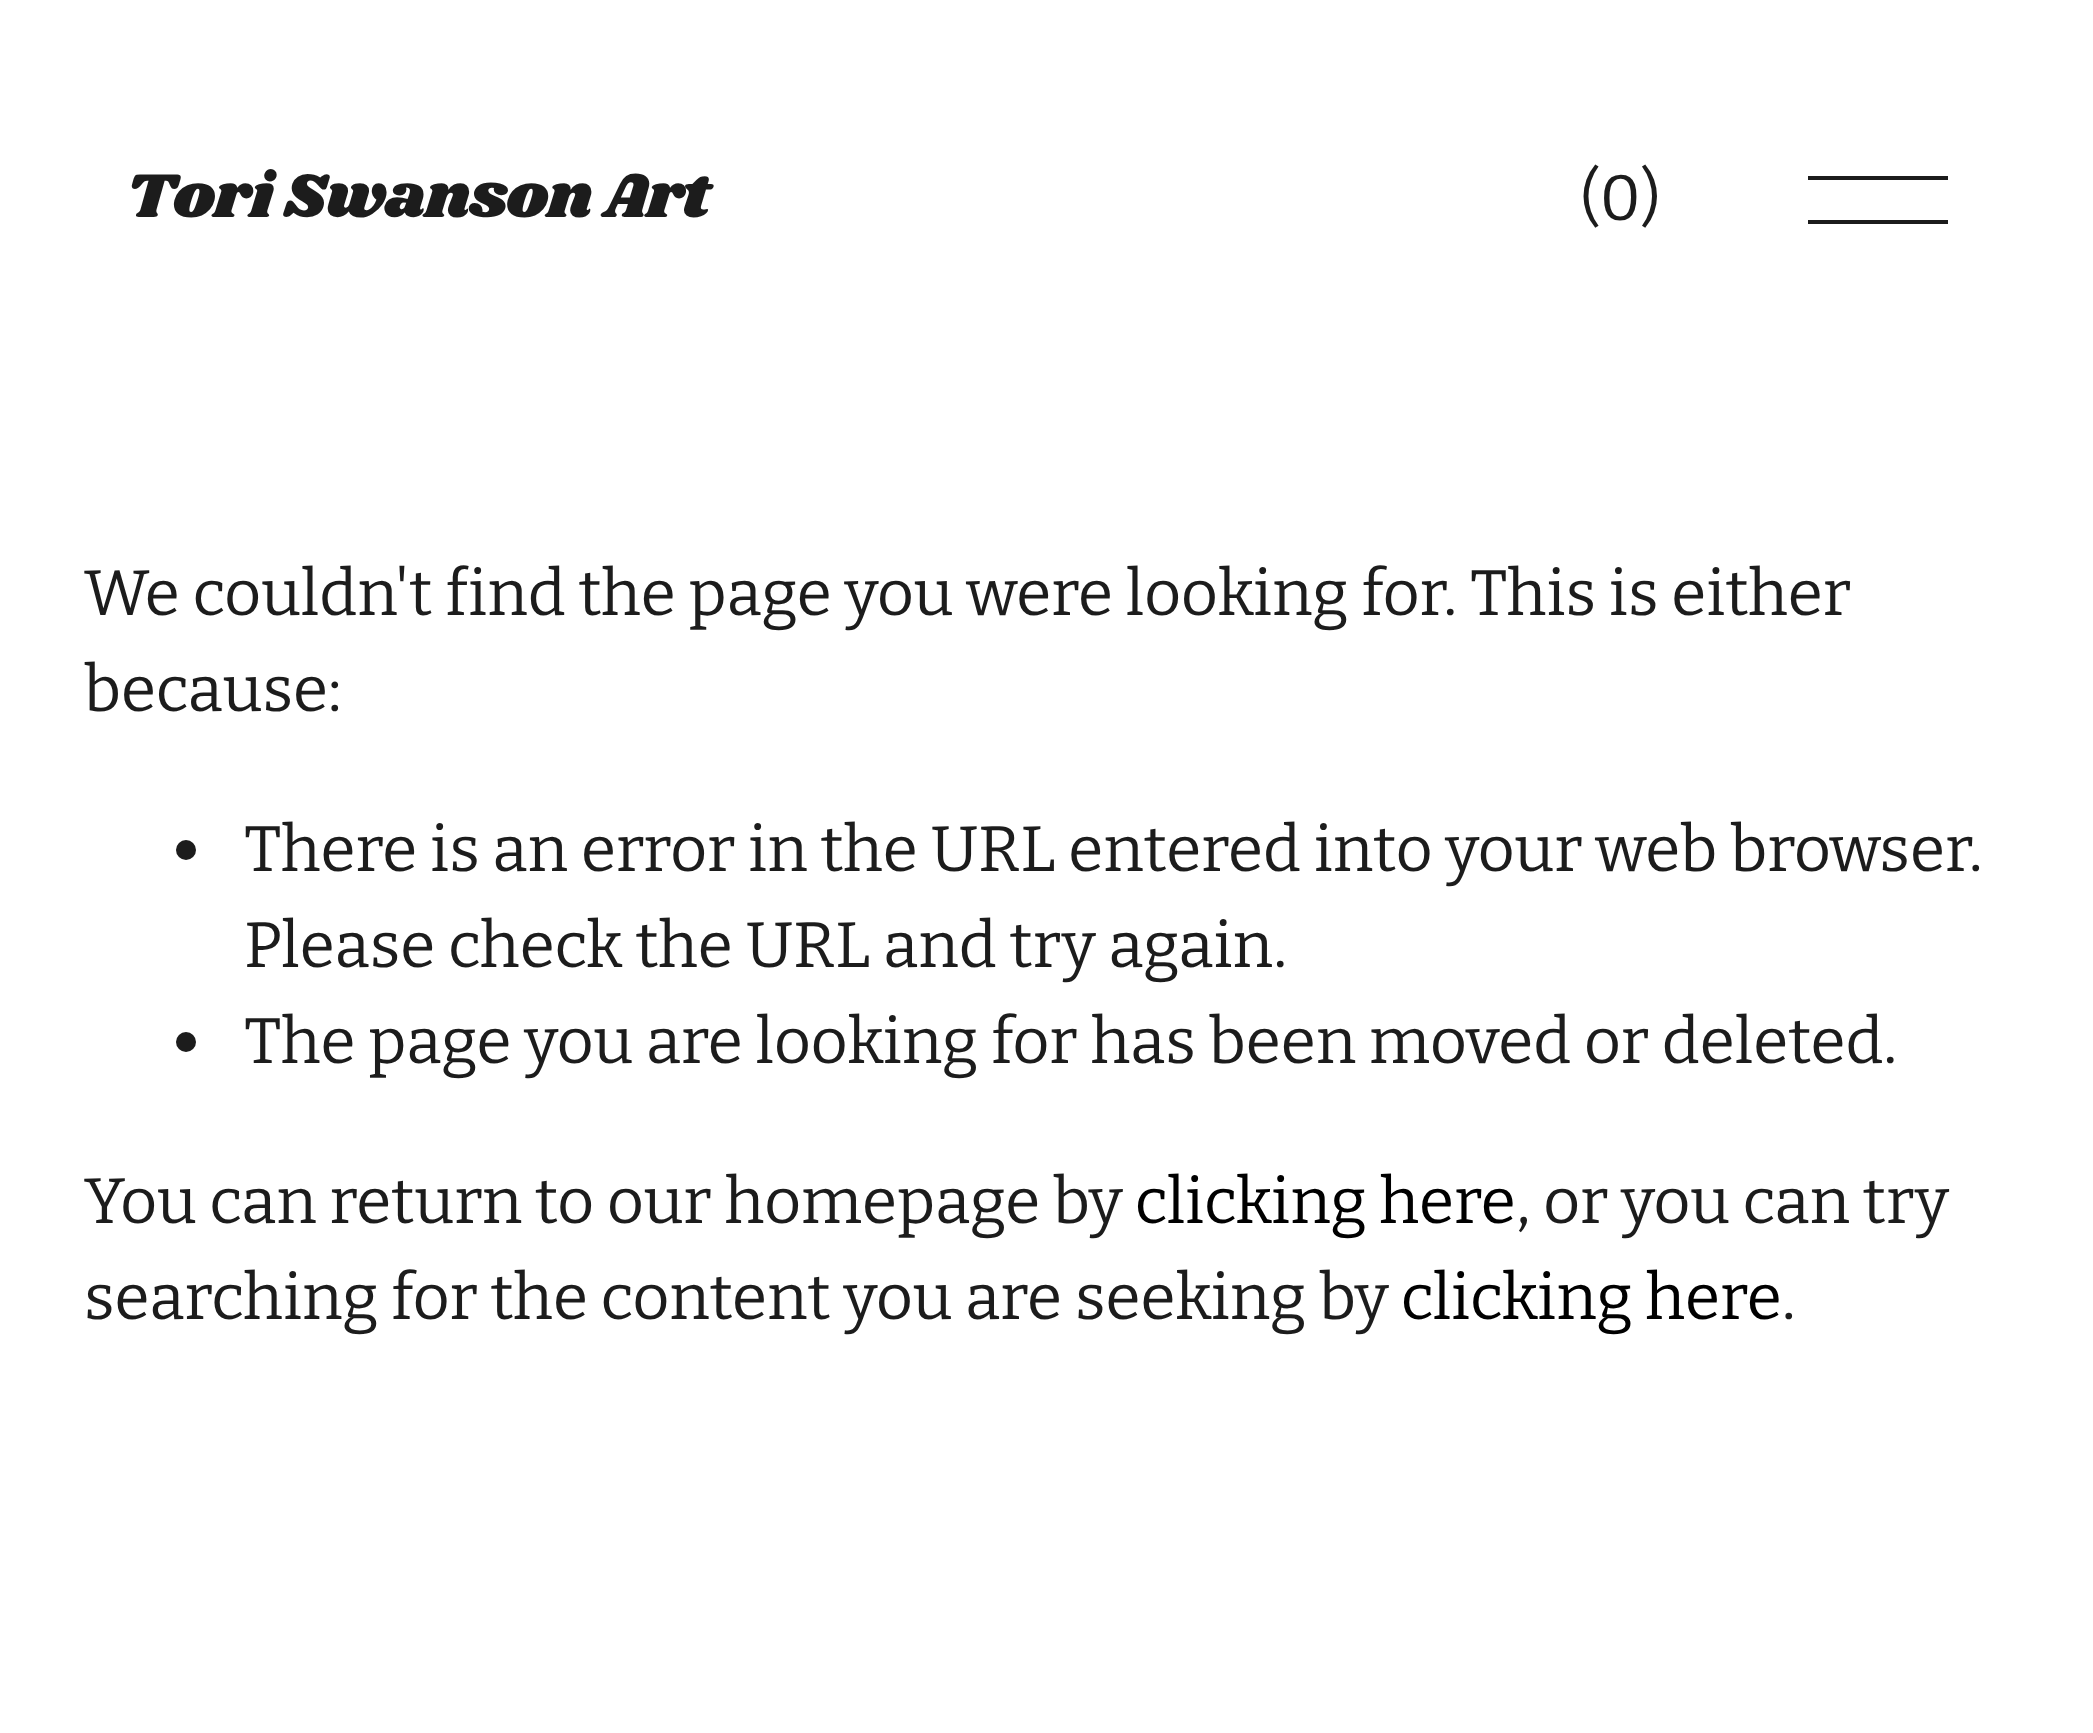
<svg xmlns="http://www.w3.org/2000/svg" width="2093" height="1733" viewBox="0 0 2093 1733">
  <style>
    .t1 { font: 64px Shrikhand; letter-spacing: -1.25px; fill: #1c1c1c; }
    .t2 { font: 64px Bitter; fill: #1c1c1c; }
    .t3 { font: 64px Bitter; fill: #000; }
  </style>
  <rect width="100%" height="100%" fill="#fff"/>
  <text x="126" y="217" class="t1">Tori Swanson Art</text>
  <text x="1580" y="220" class="t2">(0)</text>
  <rect x="1808" y="176" width="140" height="4" fill="#1c1c1c"/>
  <rect x="1808" y="220" width="140" height="4" fill="#1c1c1c"/>
  <text x="84" y="615" class="t2">We couldn't find the page you were looking for. This is either</text>
  <text x="84" y="711" class="t2">because:</text>
  <circle cx="186" cy="850" r="10" fill="#1c1c1c"/>
  <text x="244" y="871" class="t2">There is an error in the URL entered into your web browser.</text>
  <text x="244" y="967" class="t2">Please check the URL and try again.</text>
  <circle cx="186" cy="1042" r="10" fill="#1c1c1c"/>
  <text x="244" y="1063" class="t2">The page you are looking for has been moved or deleted.</text>
  <text x="84" y="1223" class="t2">You can return to our homepage by</text>
  <text x="1135" y="1223" class="t3">clicking here</text>
  <text x="1516" y="1223" class="t2">, or you can try</text>
  <text x="84" y="1319" class="t2">searching for the content you are seeking by</text>
  <text x="1401" y="1319" class="t3">clicking here</text>
  <text x="1782" y="1319" class="t2">.</text>
</svg>
